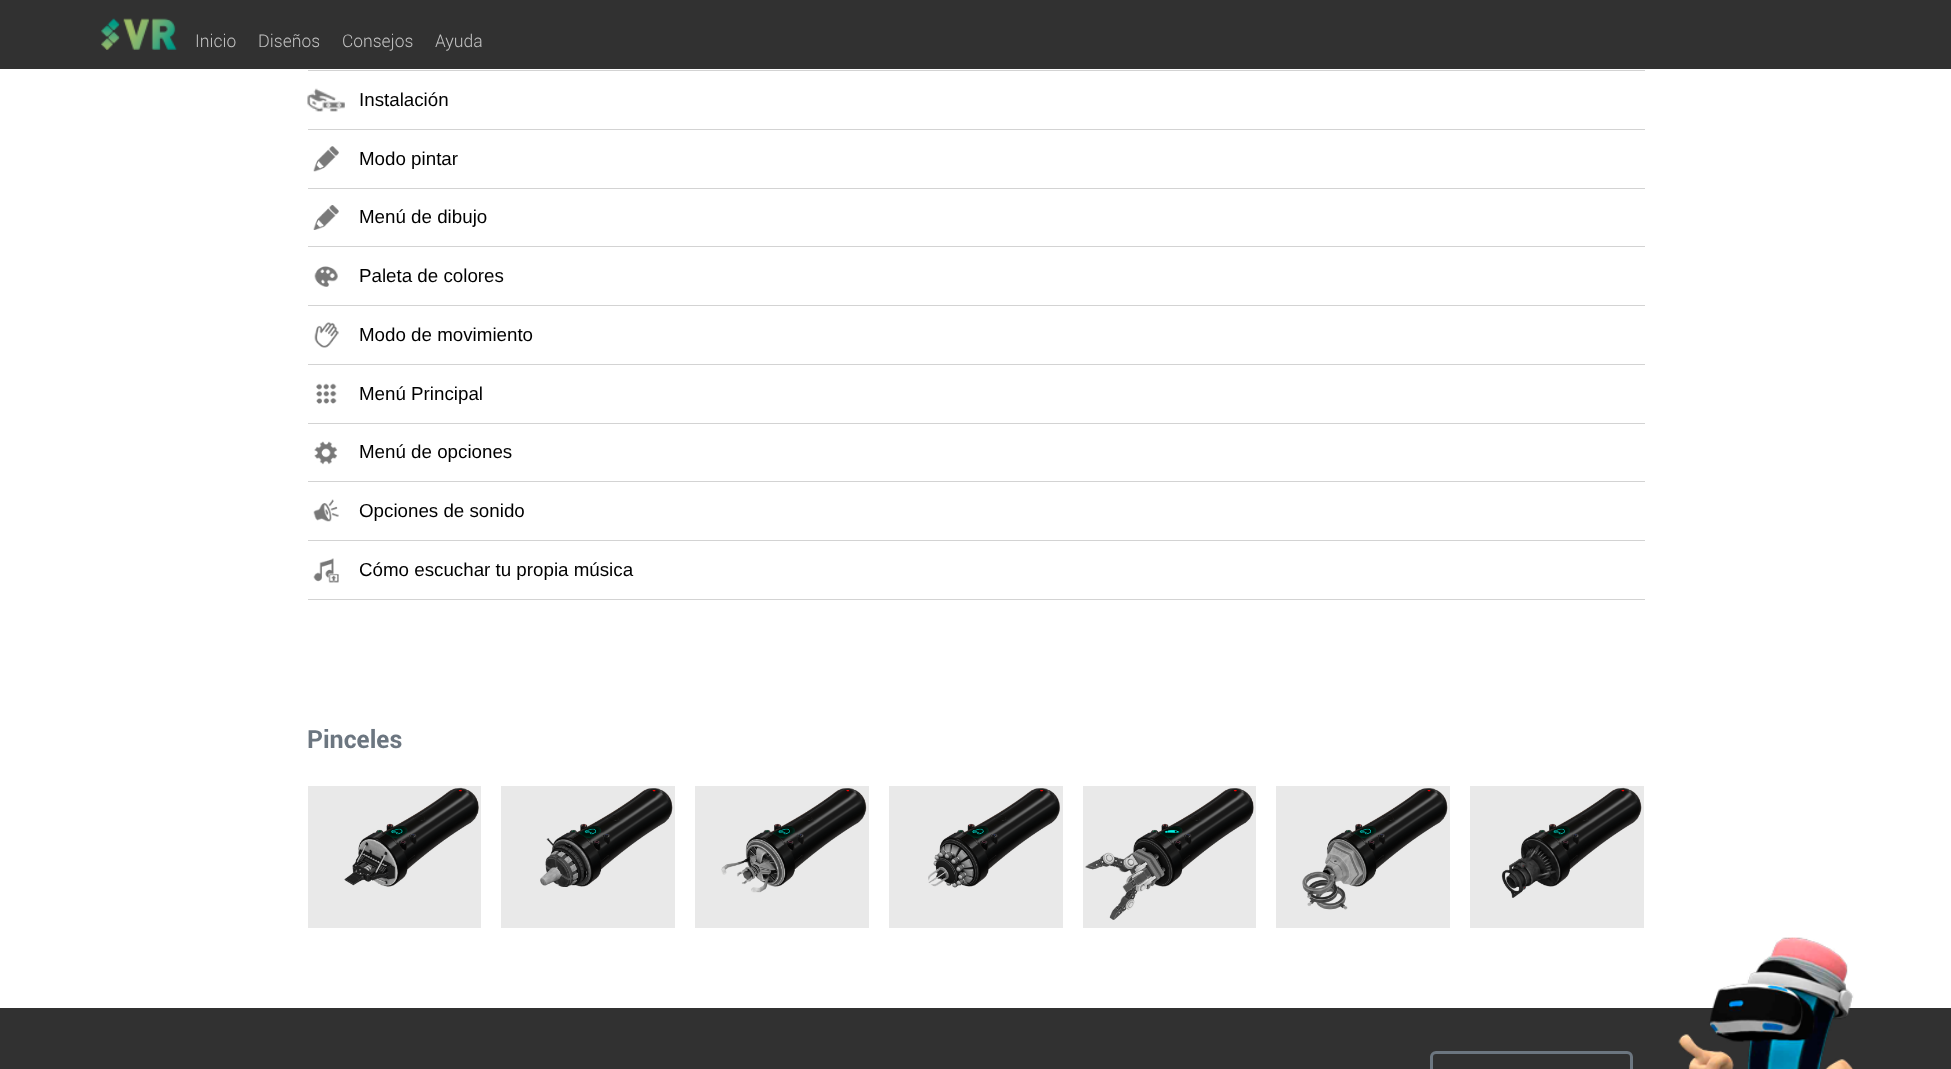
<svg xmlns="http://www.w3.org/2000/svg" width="1951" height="1069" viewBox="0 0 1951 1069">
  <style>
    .t1 { font: 300 17.5px Roboto; fill: #c1c1c1; }
    .t2 { font: 18.75px Liberation Sans; fill: #000; }
    .t3 { font: bold 25px Roboto; fill: #6c7680; }
  </style>
  <rect width="100%" height="100%" fill="#fff"/>
  <rect x="0" y="0" width="1951" height="69" fill="#313131"/>
  <image x="101" y="18" width="76" height="32" href="images/1.png"/>
  <text x="195" y="47" class="t1">Inicio</text>
  <text x="258" y="47" class="t1">Diseños</text>
  <text x="342" y="47" class="t1">Consejos</text>
  <text x="435" y="47" class="t1">Ayuda</text>
  <rect x="308" y="70" width="1337" height="1" fill="#d3d3d3"/>
  <image x="307" y="88" width="38" height="24" href="images/2.png"/>
  <text x="359" y="106" class="t2">Instalación</text>
  <rect x="308" y="129" width="1337" height="1" fill="#d3d3d3"/>
  <image x="313" y="146" width="26" height="26" href="images/3.png"/>
  <text x="359" y="165" class="t2">Modo pintar</text>
  <rect x="308" y="188" width="1337" height="1" fill="#d3d3d3"/>
  <image x="313" y="205" width="26" height="25" href="images/4.png"/>
  <text x="359" y="223" class="t2">Menú de dibujo</text>
  <rect x="308" y="246" width="1337" height="1" fill="#d3d3d3"/>
  <image x="314" y="266" width="24" height="21" href="images/5.png"/>
  <text x="359" y="282" class="t2">Paleta de colores</text>
  <rect x="308" y="305" width="1337" height="1" fill="#d3d3d3"/>
  <image x="314" y="322" width="25" height="26" href="images/6.png"/>
  <text x="359" y="341" class="t2">Modo de movimiento</text>
  <rect x="308" y="364" width="1337" height="1" fill="#d3d3d3"/>
  <image x="316" y="383" width="21" height="21" href="images/7.png"/>
  <text x="359" y="400" class="t2">Menú Principal</text>
  <rect x="308" y="423" width="1337" height="1" fill="#d3d3d3"/>
  <image x="314" y="441" width="24" height="24" href="images/8.png"/>
  <text x="359" y="458" class="t2">Menú de opciones</text>
  <rect x="308" y="481" width="1337" height="1" fill="#d3d3d3"/>
  <image x="313" y="499" width="26" height="23" href="images/9.png"/>
  <text x="359" y="517" class="t2">Opciones de sonido</text>
  <rect x="308" y="540" width="1337" height="1" fill="#d3d3d3"/>
  <rect x="308" y="599" width="1337" height="1" fill="#d3d3d3"/>
  <image x="313" y="558" width="26" height="25" href="images/10.png"/>
  <text x="359" y="576" class="t2">Cómo escuchar tu propia música</text>
  <text x="307" y="748" class="t3">Pinceles</text>
  <rect x="308" y="786" width="173" height="142" fill="#e9e9e9"/>
  <image x="344" y="787" width="135" height="100" href="images/11.png"/>
  <rect x="501" y="786" width="174" height="142" fill="#e9e9e9"/>
  <image x="540" y="788" width="133" height="99" href="images/12.png"/>
  <rect x="695" y="786" width="174" height="142" fill="#e9e9e9"/>
  <image x="721" y="788" width="146" height="105" href="images/13.png"/>
  <rect x="889" y="786" width="174" height="142" fill="#e9e9e9"/>
  <image x="928" y="788" width="132" height="100" href="images/14.png"/>
  <rect x="1083" y="786" width="173" height="142" fill="#e9e9e9"/>
  <image x="1085" y="788" width="169" height="132" href="images/15.png"/>
  <rect x="1276" y="786" width="174" height="142" fill="#e9e9e9"/>
  <image x="1302" y="788" width="146" height="122" href="images/16.png"/>
  <rect x="1470" y="786" width="174" height="142" fill="#e9e9e9"/>
  <image x="1501" y="787" width="141" height="111" href="images/17.png"/>
  <rect x="0" y="1008" width="1951" height="61" fill="#313131"/>
  <rect x="1431.5" y="1052.5" width="200" height="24" rx="4.5" fill="none" stroke="#6c7680" stroke-width="3"/>
  <image x="1678" y="937" width="176" height="132" href="images/18.png"/>
</svg>
